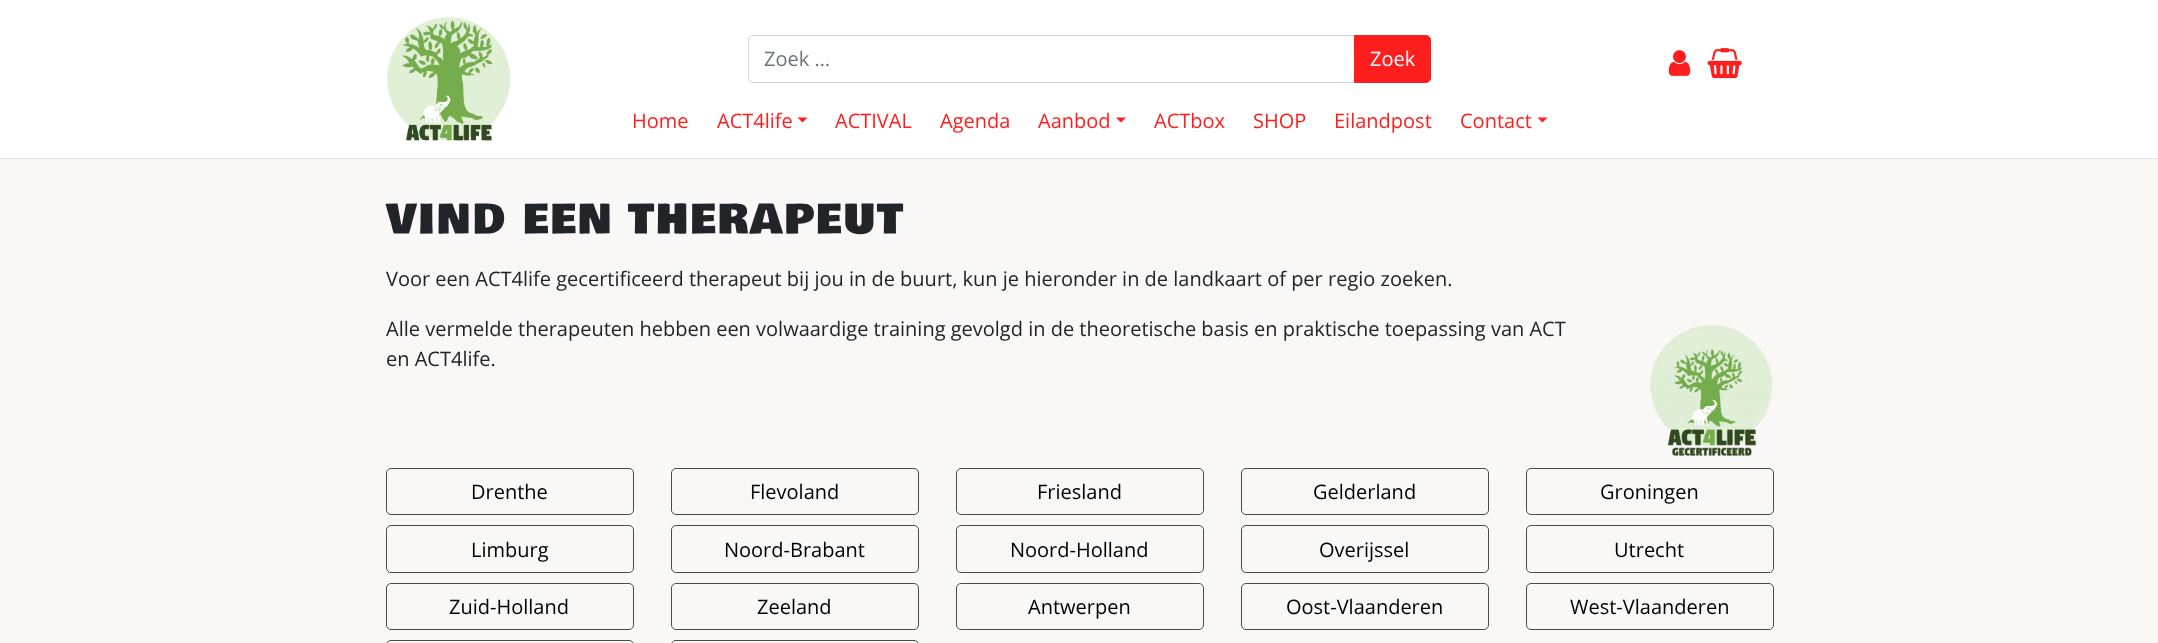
<svg xmlns="http://www.w3.org/2000/svg" width="2158" height="643" viewBox="0 0 2158 643">
  <style>
    .t1 { font: 20px Open Sans; fill: #6c757d; }
    .t2 { font: 20px Open Sans; fill: #fff; }
    .t3 { font: 20px Open Sans; fill: #ff1e1e; }
    .t4 { font: 40px Bowlby One; letter-spacing: 2px; fill: #212529; }
    .t5 { font: 20px Open Sans; fill: #212529; }
    .t6 { font: 20px Open Sans; fill: #000; }
  </style>
  <rect width="100%" height="100%" fill="#faf7f7"/>
  <rect x="0" y="0" width="2158" height="158" fill="#fff"/>
  <rect x="0" y="158" width="2158" height="1" fill="#e2e2e2"/>
  <image x="387" y="17" width="124" height="124" href="images/1.png"/>
  <path d="M753 35.5H1354.5V82.5H753C750.5 82.5 748.5 80.5 748.5 78V40C748.5 37.5 750.5 35.5 753 35.5Z" fill="none" stroke="#ced4da"/>
  <text x="764" y="66" class="t1">Zoek …</text>
  <path d="M1354.5 35.5H1426C1428.5 35.5 1430.5 37.5 1430.5 40V78C1430.5 80.5 1428.5 82.5 1426 82.5H1354.5Z" fill="#ff1e1e" stroke="#ff1e1e"/>
  <text x="1370" y="66" class="t2">Zoek</text>
  <text x="632" y="128" class="t3">Home</text>
  <text x="717" y="128" class="t3">ACT4life</text>
  <path d="M797.5 117.5H807.5L802.5 122.5Z" fill="#ff1e1e"/>
  <text x="835" y="128" class="t3">ACTIVAL</text>
  <text x="940" y="128" class="t3">Agenda</text>
  <text x="1038" y="128" class="t3">Aanbod</text>
  <path d="M1116 117.5H1126L1121 122.5Z" fill="#ff1e1e"/>
  <text x="1154" y="128" class="t3">ACTbox</text>
  <text x="1253" y="128" class="t3">SHOP</text>
  <text x="1334" y="128" class="t3">Eilandpost</text>
  <text x="1460" y="128" class="t3">Contact</text>
  <path d="M1537.5 117.5H1547.5L1542.5 122.5Z" fill="#ff1e1e"/>
  <image x="1668" y="50" width="23" height="26" href="images/2.png"/>
  <image x="1707" y="48" width="35" height="31" href="images/3.png"/>
  <text x="386" y="233" class="t4">VIND EEN THERAPEUT</text>
  <text x="386" y="286" class="t5">Voor een ACT4life gecertificeerd therapeut bij jou in de buurt, kun je hieronder in de landkaart of per regio zoeken.</text>
  <text x="386" y="336" class="t5">Alle vermelde therapeuten hebben een volwaardige training gevolgd in de theoretische basis en praktische toepassing van ACT</text>
  <text x="386" y="366" class="t5">en ACT4life.</text>
  <image x="1649" y="324" width="124" height="132" href="images/4.png"/>
  <rect x="386.5" y="468.5" width="247" height="46" rx="4.5" fill="none" stroke="#4b4b4b"/>
  <text x="471" y="499" class="t6">Drenthe</text>
  <rect x="671.5" y="468.5" width="247" height="46" rx="4.5" fill="none" stroke="#4b4b4b"/>
  <text x="750" y="499" class="t6">Flevoland</text>
  <rect x="956.5" y="468.5" width="247" height="46" rx="4.5" fill="none" stroke="#4b4b4b"/>
  <text x="1037" y="499" class="t6">Friesland</text>
  <rect x="1241.5" y="468.5" width="247" height="46" rx="4.5" fill="none" stroke="#4b4b4b"/>
  <text x="1313" y="499" class="t6">Gelderland</text>
  <rect x="1526.5" y="468.5" width="247" height="46" rx="4.5" fill="none" stroke="#4b4b4b"/>
  <text x="1600" y="499" class="t6">Groningen</text>
  <rect x="386.5" y="525.5" width="247" height="47" rx="4.5" fill="none" stroke="#4b4b4b"/>
  <text x="471" y="557" class="t6">Limburg</text>
  <rect x="671.5" y="525.5" width="247" height="47" rx="4.5" fill="none" stroke="#4b4b4b"/>
  <text x="724" y="557" class="t6">Noord-Brabant</text>
  <rect x="956.5" y="525.5" width="247" height="47" rx="4.5" fill="none" stroke="#4b4b4b"/>
  <text x="1010" y="557" class="t6">Noord-Holland</text>
  <rect x="1241.5" y="525.5" width="247" height="47" rx="4.5" fill="none" stroke="#4b4b4b"/>
  <text x="1319" y="557" class="t6">Overijssel</text>
  <rect x="1526.5" y="525.5" width="247" height="47" rx="4.5" fill="none" stroke="#4b4b4b"/>
  <text x="1614" y="557" class="t6">Utrecht</text>
  <rect x="386.5" y="583.5" width="247" height="46" rx="4.5" fill="none" stroke="#4b4b4b"/>
  <text x="449" y="614" class="t6">Zuid-Holland</text>
  <rect x="671.5" y="583.5" width="247" height="46" rx="4.5" fill="none" stroke="#4b4b4b"/>
  <text x="757" y="614" class="t6">Zeeland</text>
  <rect x="956.5" y="583.5" width="247" height="46" rx="4.5" fill="none" stroke="#4b4b4b"/>
  <text x="1028" y="614" class="t6">Antwerpen</text>
  <rect x="1241.5" y="583.5" width="247" height="46" rx="4.5" fill="none" stroke="#4b4b4b"/>
  <text x="1286" y="614" class="t6">Oost-Vlaanderen</text>
  <rect x="1526.5" y="583.5" width="247" height="46" rx="4.5" fill="none" stroke="#4b4b4b"/>
  <text x="1570" y="614" class="t6">West-Vlaanderen</text>
  <rect x="386.5" y="640.5" width="247" height="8" rx="4.5" fill="none" stroke="#4b4b4b"/>
  <rect x="671.5" y="640.5" width="247" height="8" rx="4.5" fill="none" stroke="#4b4b4b"/>
</svg>
